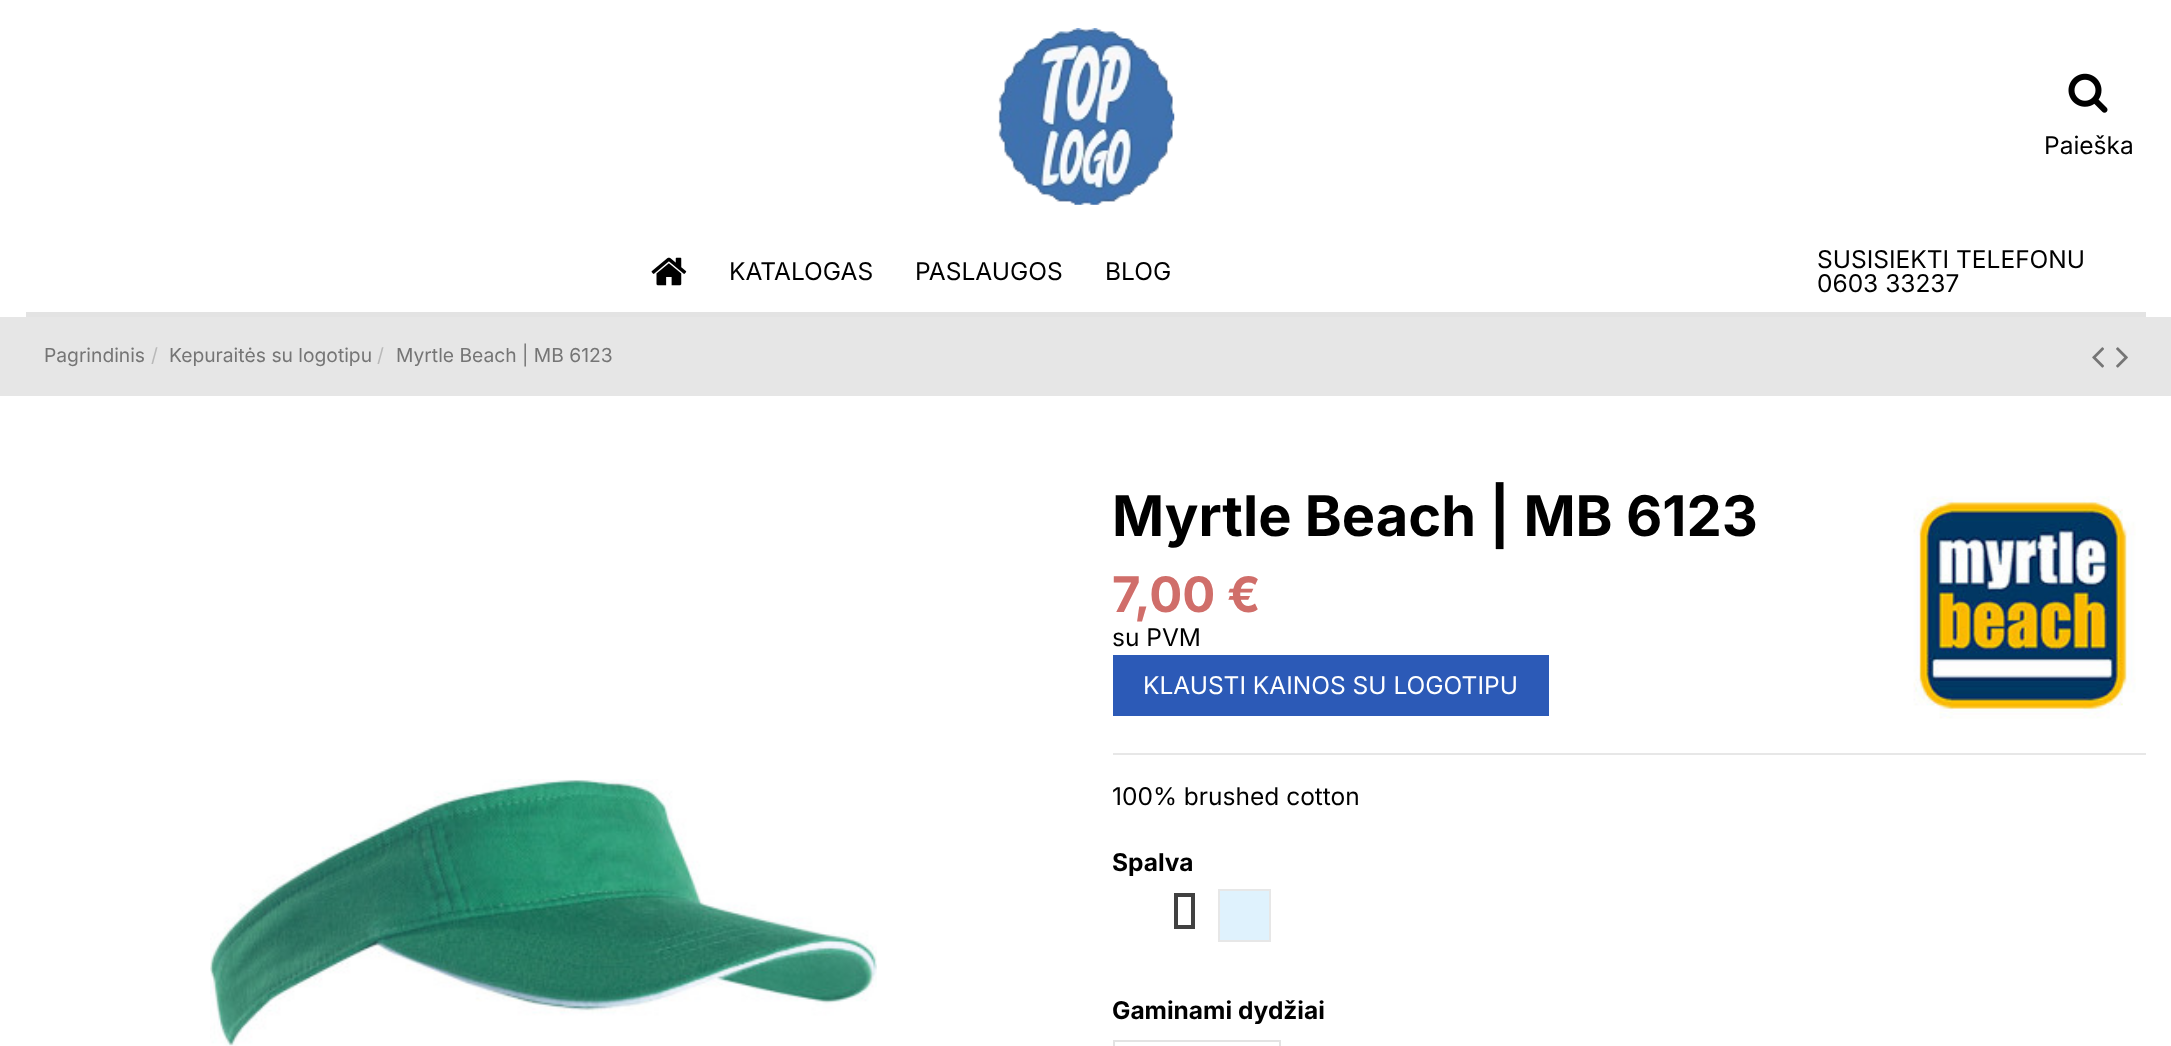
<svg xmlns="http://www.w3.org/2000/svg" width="2171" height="1046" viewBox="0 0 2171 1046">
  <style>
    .t1 { font: 24.5px Inter; fill: #000; }
    .t2 { font: 19.25px Inter; fill: #757575; }
    .t3 { font: 19.25px Inter; fill: #b9b9b9; }
    .t4 { font: bold 56px Inter; fill: #000; }
    .t5 { font: bold 49px Inter; fill: #d06e6a; }
    .t6 { font: 24.5px Inter; fill: #fff; }
    .t7 { font: bold 24.5px Inter; fill: #000; }
  </style>
  <rect width="100%" height="100%" fill="#fff"/>
  <image x="998" y="28" width="177" height="177" href="images/1.png"/>
  <image x="2068" y="73" width="40" height="40" href="images/2.png"/>
  <text x="2044" y="154" class="t1">Paieška</text>
  <rect x="26" y="312" width="2120" height="5" fill="#e3e3e3"/>
  <image x="651" y="257" width="36" height="29" href="images/3.png"/>
  <text x="729" y="280" class="t1">KATALOGAS</text>
  <text x="915" y="280" class="t1">PASLAUGOS</text>
  <text x="1105" y="280" class="t1">BLOG</text>
  <text x="1817" y="268" class="t1">SUSISIEKTI TELEFONU</text>
  <text x="1817" y="292" class="t1">0603 33237</text>
  <rect x="0" y="317" width="2171" height="79" fill="#e6e6e6"/>
  <text x="44" y="362" class="t2">Pagrindinis</text>
  <text x="151" y="362" class="t3">/</text>
  <text x="169" y="362" class="t2">Kepuraitės su logotipu</text>
  <text x="377" y="362" class="t3">/</text>
  <text x="396" y="362" class="t2">Myrtle Beach | MB 6123</text>
  <image x="2092" y="347" width="12" height="21" href="images/4.png"/>
  <image x="2116" y="347" width="12" height="21" href="images/5.png"/>
  <image x="210" y="779" width="667" height="267" href="images/6.png"/>
  <rect x="1113" y="753" width="1033" height="2" fill="#e7e7e7"/>
  <text x="1112" y="536" class="t4">Myrtle Beach | MB 6123</text>
  <image x="1913" y="496" width="223" height="223" href="images/7.png"/>
  <text x="1112" y="612" class="t5">7,00 €</text>
  <text x="1112" y="646" class="t1">su PVM</text>
  <rect x="1113" y="655" width="436" height="61" fill="#2c5ab7"/>
  <text x="1143" y="694" class="t6">KLAUSTI KAINOS SU LOGOTIPU</text>
  <text x="1112" y="805" class="t1">100% brushed cotton</text>
  <text x="1112" y="871" class="t7">Spalva</text>
  <rect x="1176" y="895" width="17" height="32" fill="none" stroke="#414141" stroke-width="4"/>
  <rect x="1219" y="890" width="51" height="51" fill="#dff2fd" stroke="#e7e7e7" stroke-width="2"/>
  <text x="1112" y="1019" class="t7">Gaminami dydžiai</text>
  <rect x="1114" y="1041" width="166" height="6" fill="none" stroke="#e3e3e3" stroke-width="2"/>
</svg>
